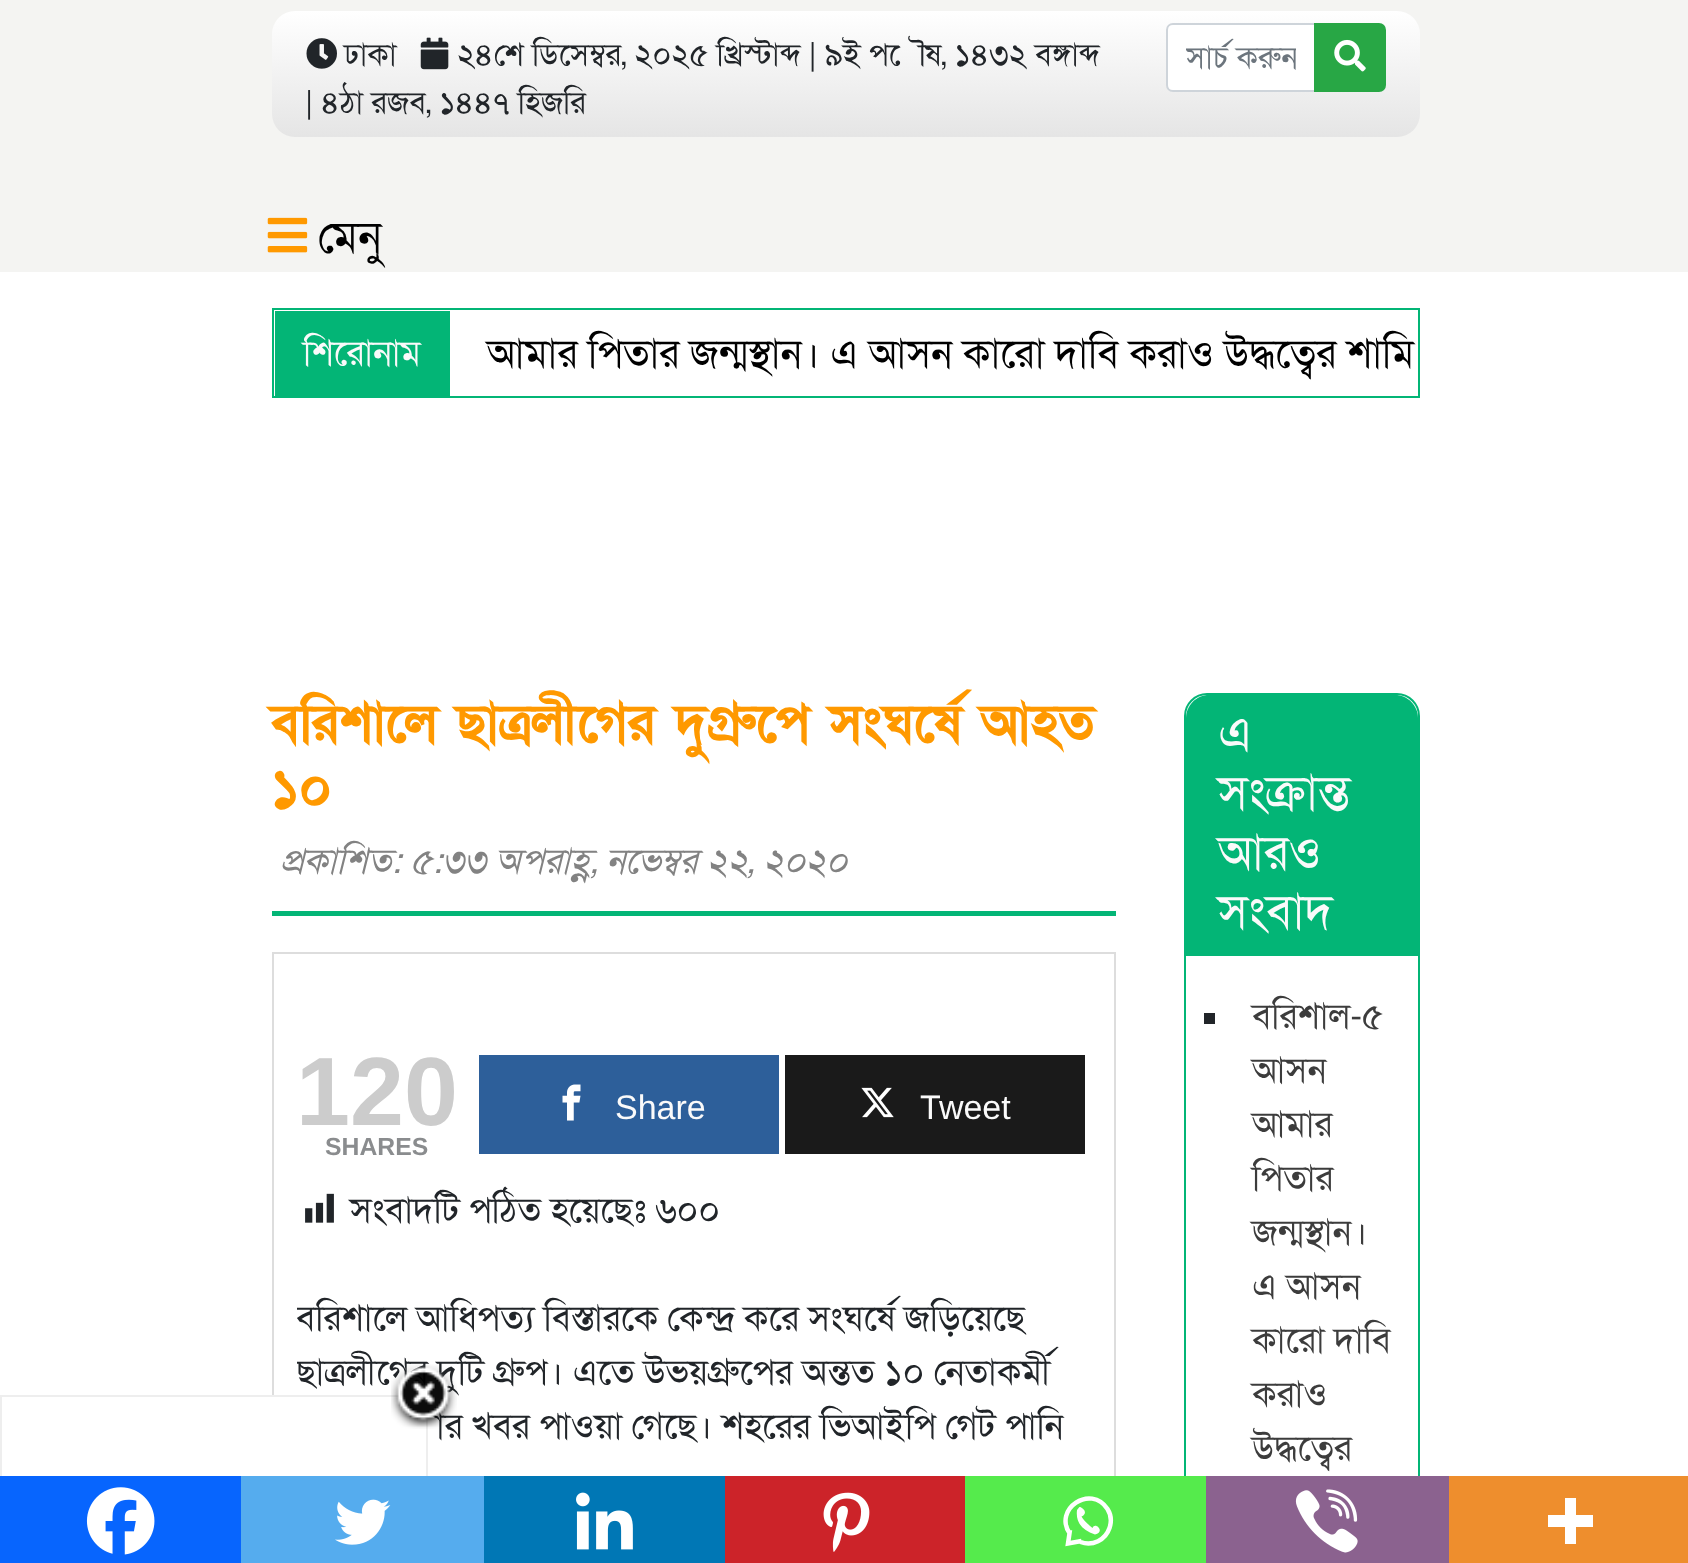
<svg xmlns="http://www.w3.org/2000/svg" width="1688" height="1563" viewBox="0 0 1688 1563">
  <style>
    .t1 { font: 31.5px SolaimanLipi; fill: #212529; }
    .t2 { font: 31.5px SolaimanLipi; fill: #6c757d; }
    .t3 { font: 45px SolaimanLipi; fill: #000; }
    .t4 { font: 36px SolaimanLipi; fill: #fafafa; }
    .t5 { font: 40.5px SolaimanLipi; fill: #000; }
    .t6 { font: 36px SolaimanLipi; fill: #212529; }
    .t7 { font: bold 54px SolaimanLipi; fill: #f90; }
    .t8 { font: italic 36px SolaimanLipi; fill: #828282; }
    .t9 { font: bold 97px Liberation Sans; fill: #ccc; }
    .t10 { font: bold 24.75px Liberation Sans; fill: #8a8c8e; }
    .t11 { font: 34px Liberation Sans; fill: #fafafa; }
    .t12 { font: 49.5px SolaimanLipi; fill: #fafafa; }
    .t13 { font: 36px SolaimanLipi; fill: #3c3c3c; }
  </style>
  <defs>
    <linearGradient id="g1" gradientUnits="userSpaceOnUse" x1="846" y1="11" x2="846" y2="137"><stop offset="0" stop-color="#fff"/><stop offset="1" stop-color="#e5e5e5"/></linearGradient>
    <clipPath id="clip1"><rect x="1186" y="36" width="110" height="43"/></clipPath>
    <clipPath id="clip2"><rect x="297" y="1292" width="794" height="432"/></clipPath>
  </defs>
  <rect width="100%" height="100%" fill="#fff"/>
  <rect x="0" y="0" width="1688" height="272" fill="#f4f4f2"/>
  <rect x="272" y="11" width="1148" height="126" rx="23" fill="url(#g1)"/>
  <image x="306" y="38" width="31" height="31" href="images/1.png"/>
  <text x="344" y="65" class="t1">ঢাকা</text>
  <image x="420" y="37" width="29" height="33" href="images/2.png"/>
  <text x="457" y="65" class="t1">২৪শে ডিসেম্বর, ২০২৫ খ্রিস্টাব্দ | ৯ই পৌষ, ১৪৩২ বঙ্গাব্দ</text>
  <text x="305" y="113" class="t1">| ৪ঠা রজব, ১৪৪৭ হিজরি</text>
  <path d="M1173 24H1315V91H1173C1169.5 91 1167 88.5 1167 85V30C1167 26.5 1169.5 24 1173 24Z" fill="#fff" stroke="#ced4da" stroke-width="2"/>
  <g clip-path="url(#clip1)">
    <text x="1186" y="68" class="t2">সার্চ করুন</text>
  </g>
  <path d="M1315 24H1379C1382.5 24 1385 26.5 1385 30V85C1385 88.5 1382.5 91 1379 91H1315Z" fill="#28a745" stroke="#28a745" stroke-width="2"/>
  <image x="1334" y="39" width="32" height="33" href="images/3.png"/>
  <image x="267" y="217" width="41" height="36" href="images/4.png"/>
  <text x="318" y="252" class="t3">মেনু</text>
  <rect x="273" y="309" width="1146" height="88" fill="none" stroke="#03b576" stroke-width="2"/>
  <rect x="275" y="311" width="175" height="85" fill="#03b576"/>
  <text x="303" y="365" class="t4">শিরোনাম</text>
  <text x="487" y="367" class="t5">আমার পিতার জন্মস্থান। এ আসন কারো দাবি করাও উদ্ধত্বের শামি</text>
  <rect x="273" y="953" width="842" height="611" fill="none" stroke="#ddd" stroke-width="2"/>
  <rect x="272" y="1397" width="2" height="79" fill="#fff"/>
  <g clip-path="url(#clip2)">
    <text x="296" y="1384" class="t6">ছাত্রলীগের দুটি গ্রুপ। এতে উভয়গ্রুপের অন্তত ১০ নেতাকর্মী</text>
  </g>
  <rect x="1" y="1396" width="426" height="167" fill="none" stroke="#eee" stroke-width="2"/>
  <text x="436" y="1438" class="t6">ার খবর পাওয়া গেছে। শহরের ভিআইপি গেট পানি</text>
  <image x="391" y="1364" width="66" height="65" href="images/5.png"/>
  <text x="271" y="741" class="t7">বরিশালে ছাত্রলীগের দুগ্রুপে সংঘর্ষে আহত</text>
  <text x="271" y="806" class="t7">১০</text>
  <rect x="272" y="911" width="844" height="5" fill="#03b576"/>
  <text x="280" y="873" class="t8">প্রকাশিত: ৫:৩৩ অপরাহ্ণ, নভেম্বর ২২, ২০২০</text>
  <text x="296" y="1125" class="t9">120</text>
  <text x="325" y="1155" class="t10">SHARES</text>
  <rect x="479" y="1055" width="300" height="99" fill="#2d5f9a"/>
  <image x="562" y="1084" width="19" height="37" href="images/6.png"/>
  <text x="615" y="1119" class="t11">Share</text>
  <rect x="785" y="1055" width="300" height="99" fill="#1a1a1a"/>
  <image x="861" y="1087" width="33" height="31" href="images/7.png"/>
  <text x="920" y="1119" class="t11">Tweet</text>
  <image x="305" y="1193" width="29" height="30" href="images/8.png"/>
  <text x="350" y="1222" class="t6">সংবাদটি পঠিত হয়েছেঃ ৬০০</text>
  <g clip-path="url(#clip2)">
    <text x="296" y="1330" class="t6">বরিশালে আধিপত্য বিস্তারকে কেন্দ্র করে সংঘর্ষে জড়িয়েছে</text>
  </g>
  <rect x="0" y="1476" width="241" height="87" fill="#0765fe"/>
  <image x="86" y="1487" width="69" height="68" href="images/9.png"/>
  <rect x="241" y="1476" width="243" height="87" fill="#55acee"/>
  <image x="335" y="1499" width="56" height="46" href="images/10.png"/>
  <rect x="484" y="1476" width="241" height="87" fill="#0077b5"/>
  <image x="576" y="1492" width="57" height="58" href="images/11.png"/>
  <rect x="725" y="1476" width="240" height="87" fill="#cc2329"/>
  <image x="823" y="1492" width="47" height="60" href="images/12.png"/>
  <path d="M1207 694H1397C1409 694 1419 704 1419 716V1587H1185V716C1185 704 1195 694 1207 694Z" fill="none" stroke="#03b576" stroke-width="2"/>
  <rect x="965" y="1476" width="241" height="87" fill="#55eb4c"/>
  <path d="M1080.5 1542C1092.5 1546.5 1105.5 1540 1109.5 1528C1111.5 1522 1111 1514.5 1107.5 1509C1091 1483.5 1052.5 1509 1070 1534M1070 1530L1068 1543.5L1081.5 1541" fill="none" stroke="#fff" stroke-width="4.5"/>
  <path d="M1077 1510C1075.5 1522 1081.5 1530 1095 1534.5C1106 1532 1095 1521 1092.5 1528C1086.5 1523 1083 1519.5 1081.5 1516.5C1090.5 1512 1079 1505 1079 1507.5" fill="#fff"/>
  <rect x="1206" y="1476" width="243" height="87" fill="#8b628f"/>
  <image x="1295" y="1489" width="63" height="64" href="images/13.png"/>
  <rect x="1449" y="1476" width="239" height="87" fill="#ee8e2d"/>
  <path d="M1576 1515V1498H1565V1515H1548V1527H1565V1544H1576V1527H1593V1515Z" fill="#fff" fill-rule="evenodd"/>
  <path d="M1209 695H1395C1407.5 695 1418 705.5 1418 718V956H1186V718C1186 705.5 1196.5 695 1209 695Z" fill="#03b576"/>
  <text x="1218" y="750" class="t12">এ</text>
  <text x="1218" y="809" class="t12">সংক্রান্ত</text>
  <text x="1218" y="869" class="t12">আরও</text>
  <text x="1218" y="928" class="t12">সংবাদ</text>
  <rect x="1204" y="1013" width="11" height="11" fill="#212529"/>
  <text x="1252" y="1028" class="t13">বরিশাল-৫</text>
  <text x="1252" y="1082" class="t13">আসন</text>
  <text x="1252" y="1136" class="t13">আমার</text>
  <text x="1252" y="1190" class="t13">পিতার</text>
  <text x="1252" y="1244" class="t13">জন্মস্থান।</text>
  <text x="1252" y="1298" class="t13">এ আসন</text>
  <text x="1252" y="1352" class="t13">কারো দাবি</text>
  <text x="1252" y="1406" class="t13">করাও</text>
  <text x="1252" y="1460" class="t13">উদ্ধত্বের</text>
</svg>
